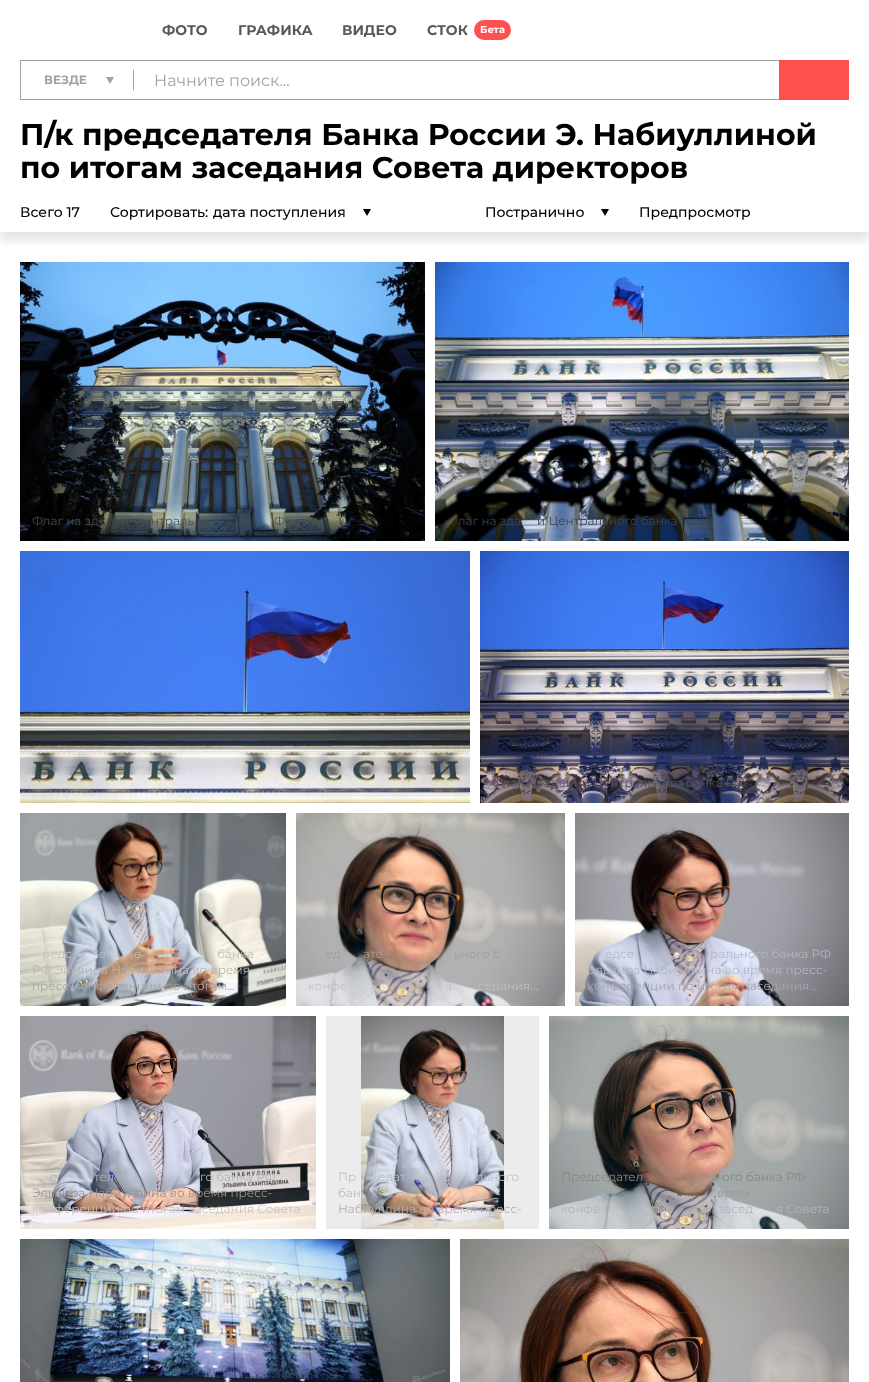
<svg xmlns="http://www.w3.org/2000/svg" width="869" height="1382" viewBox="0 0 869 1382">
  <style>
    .t1 { font: bold 14px Montserrat; fill: #595959; }
    .t2 { font: bold 10px Montserrat; fill: #fff; }
    .t3 { font: bold 12px Montserrat; fill: #a3a2a2; }
    .t4 { font: 16px Montserrat; fill: #a3a2a2; }
    .t5 { font: bold 30px Montserrat; fill: #000; }
    .t6 { font: 500 14px Montserrat; fill: #000; }
    .t7 { font: 12px Montserrat; fill: #454f4f; }
    .t8 { font: 12px Montserrat; fill: #3c4655; }
    .t9 { font: 12px Montserrat; fill: #58525e; }
    .t10 { font: 12px Montserrat; fill: #c5bfbb; }
    .t11 { font: 12px Montserrat; fill: #bcb4ad; }
    .t12 { font: 12px Montserrat; fill: #a9a6a5; }
    .t13 { font: 12px Montserrat; fill: #a99a94; }
    .t14 { font: 12px Montserrat; fill: #c1bfc1; }
    .t15 { font: 12px Montserrat; fill: #b5b6c3; }
    .t16 { font: 12px Montserrat; fill: #aba5af; }
    .t17 { font: 12px Montserrat; fill: #b2b3bc; }
    .t18 { font: 12px Montserrat; fill: #9d918e; }
    .t19 { font: 12px Montserrat; fill: #ccbfbb; }
    .t20 { font: 12px Montserrat; fill: #bbc0ca; }
    .t21 { font: 12px Montserrat; fill: #c3b9b4; }
    .t22 { font: 12px Montserrat; fill: #b8ada9; }
    .t23 { font: 12px Montserrat; fill: #8b8581; }
    .t24 { font: 12px Montserrat; fill: #959799; }
  </style>
  <defs>
    <clipPath id="clip1"><rect x="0" y="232" width="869" height="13"/></clipPath>
  </defs>
  <rect width="100%" height="100%" fill="#fff"/>
  <g clip-path="url(#clip1)">
    <rect x="0" y="9" width="869" height="232" fill="#0000001a" filter="blur(5px)"/>
  </g>
  <text x="162" y="35" class="t1">ФОТО</text>
  <text x="238" y="35" class="t1">ГРАФИКА</text>
  <text x="342" y="35" class="t1">ВИДЕО</text>
  <text x="427" y="35" class="t1">СТОК</text>
  <rect x="474" y="20" width="37" height="20" rx="10" fill="#ff5050"/>
  <text x="480" y="33" class="t2">Бета</text>
  <rect x="20" y="60" width="759" height="1" fill="#a3a2a2"/>
  <rect x="20" y="99" width="759" height="1" fill="#a3a2a2"/>
  <rect x="20" y="60" width="1" height="40" fill="#a3a2a2"/>
  <text x="44" y="84" class="t3">ВЕЗДЕ</text>
  <path d="M106 77H114L110 84Z" fill="#a3a2a2"/>
  <rect x="133" y="70" width="1" height="20" fill="#a3a2a2"/>
  <text x="154" y="86" class="t4">Начните поиск...</text>
  <rect x="779" y="60" width="70" height="40" fill="#ff5050"/>
  <text x="20" y="145" class="t5">П/к председателя Банка России Э. Набиуллиной</text>
  <text x="20" y="178" class="t5">по итогам заседания Совета директоров</text>
  <text x="20" y="217" class="t6">Всего 17</text>
  <text x="110" y="217" class="t6">Сортировать:</text>
  <text x="213" y="217" class="t6">дата поступления</text>
  <path d="M363 209H371L367 216Z" fill="#000"/>
  <text x="485" y="217" class="t6">Постранично</text>
  <path d="M601 209H609L605 216Z" fill="#000"/>
  <text x="639" y="217" class="t6">Предпросмотр</text>
  <image x="20" y="262" width="405" height="279" href="images/1.png"/>
  <text x="32" y="525" class="t7">Флаг на зд</text>
  <text x="151" y="525" class="t7">нтраль</text>
  <text x="274" y="525" class="t7">Ф</text>
  <image x="435" y="262" width="414" height="279" href="images/2.png"/>
  <text x="458" y="525" class="t8">лаг на зда</text>
  <text x="537" y="525" class="t8">и Центрального банка</text>
  <image x="20" y="551" width="450" height="252" href="images/3.png"/>
  <image x="480" y="551" width="369" height="252" href="images/4.png"/>
  <text x="492" y="787" class="t9">Флаг на здании Центрального банка РФ.</text>
  <image x="20" y="813" width="266" height="193" href="images/5.png"/>
  <text x="42" y="958" class="t10">редс</text>
  <text x="99" y="958" class="t10">е</text>
  <text x="134" y="958" class="t10">е</text>
  <text x="217" y="958" class="t10">банка</text>
  <text x="32" y="974" class="t11">РФ Эльвира Набиуллина во время</text>
  <text x="32" y="990" class="t12">пресс-конференции по итогам…</text>
  <image x="296" y="813" width="269" height="193" href="images/6.png"/>
  <text x="326" y="958" class="t13">ед</text>
  <text x="363" y="958" class="t13">ате</text>
  <text x="454" y="958" class="t13">ьного б</text>
  <text x="308" y="990" class="t14">конфе</text>
  <text x="445" y="990" class="t14">а</text>
  <text x="478" y="990" class="t14">седания…</text>
  <image x="575" y="813" width="274" height="193" href="images/7.png"/>
  <text x="605" y="958" class="t15">едсе</text>
  <text x="679" y="958" class="t15">Ц</text>
  <text x="710" y="958" class="t15">рального банка РФ</text>
  <text x="587" y="974" class="t15">Эльвира Набиуллина во время пресс-</text>
  <text x="587" y="990" class="t16">конференции по итогам заседания…</text>
  <image x="20" y="1016" width="296" height="213" href="images/8.png"/>
  <text x="50" y="1181" class="t17">е</text>
  <text x="94" y="1181" class="t17">тел</text>
  <text x="200" y="1181" class="t17">го банка РФ</text>
  <text x="32" y="1197" class="t18">Эльвира Набиуллина во время пресс-</text>
  <text x="32" y="1213" class="t19">конференции по итогам заседания Совета</text>
  <rect x="326" y="1016" width="213" height="213" fill="#ececec"/>
  <image x="361" y="1016" width="143" height="213" href="images/9.png"/>
  <text x="338" y="1181" class="t20">Пр</text>
  <text x="378" y="1181" class="t20">едат</text>
  <text x="476" y="1181" class="t20">льного</text>
  <text x="338" y="1197" class="t21">бан</text>
  <text x="338" y="1213" class="t22">Набиуллина во время пресс-</text>
  <image x="549" y="1016" width="300" height="213" href="images/10.png"/>
  <text x="561" y="1181" class="t23">Председател</text>
  <text x="722" y="1181" class="t23">ого банка РФ</text>
  <text x="717" y="1197" class="t24">врем</text>
  <text x="561" y="1213" class="t17">конфе</text>
  <text x="652" y="1213" class="t17">п</text>
  <text x="718" y="1213" class="t17">засед</text>
  <text x="776" y="1213" class="t17">я Совета</text>
  <image x="20" y="1239" width="430" height="143" href="images/11.png"/>
  <image x="460" y="1239" width="389" height="143" href="images/12.png"/>
</svg>
